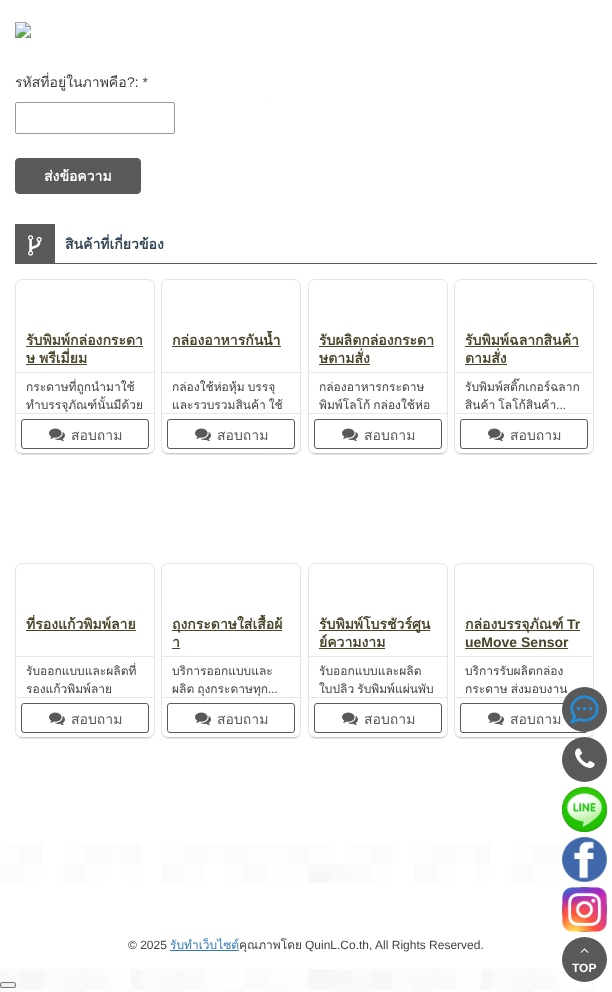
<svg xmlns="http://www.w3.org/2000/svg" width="612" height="992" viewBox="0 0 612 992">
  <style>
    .t1 { font: 14px Loma; fill: #3f3f3f; }
    .t2 { font: 14px Liberation Sans; fill: #3f3f3f; }
    .t3 { font: bold 14px Loma; fill: #fff; }
    .t4 { font: bold 14px Loma; fill: #345; }
    .t5 { font: bold 14px Loma; fill: #494429; }
    .t6 { font: 12px Loma; fill: #3f3f3f; }
    .t7 { font: 14px Loma; fill: #595959; }
    .t8 { font: bold 14px Liberation Sans; fill: #494429; }
    .t9 { font: 12px Liberation Sans; fill: #3f3f3f; }
    .t10 { font: 12px Loma; fill: #337ab7; }
    .t11 { font: bold 12px Liberation Sans; fill: #fff; }
  </style>
  <defs>
    <clipPath id="clip1"><rect x="26" y="331" width="118" height="36"/></clipPath>
    <clipPath id="clip2"><rect x="172" y="331" width="118" height="36"/></clipPath>
    <clipPath id="clip3"><rect x="319" y="331" width="118" height="36"/></clipPath>
    <clipPath id="clip4"><rect x="465" y="331" width="118" height="36"/></clipPath>
    <clipPath id="clip5"><rect x="26" y="615" width="118" height="36"/></clipPath>
    <clipPath id="clip6"><rect x="172" y="615" width="118" height="36"/></clipPath>
    <clipPath id="clip7"><rect x="319" y="615" width="118" height="36"/></clipPath>
  </defs>
  <rect width="100%" height="100%" fill="#fff"/>
  <image x="0" y="0" width="596" height="992" href="images/1.png"/>
  <rect x="0" y="0" width="596" height="844" fill="#ffffffe6"/>
  <image x="15" y="22" width="16" height="16" href="images/2.png"/>
  <text x="15" y="87" class="t1">รหัสที่อยู่ในภาพคือ</text>
  <text x="127" y="87" class="t2">?: *</text>
  <rect x="15.5" y="102.5" width="159" height="31" rx="1.5" fill="none" stroke="#999"/>
  <rect x="15.5" y="158.5" width="125" height="35" rx="3.5" fill="#595959" stroke="#595959"/>
  <text x="44" y="181" class="t3">ส่งข้อความ</text>
  <rect x="15" y="224" width="40" height="40" fill="#595959"/>
  <image x="28" y="235" width="14" height="21" href="images/3.png"/>
  <rect x="55" y="263" width="542" height="1" fill="#595959"/>
  <text x="65" y="249" class="t4">สินค้าที่เกี่ยวข้อง</text>
  <path d="M16 447C16 459 38 454 43 454H127C132 454 154 459 154 447C154 450 151 453 148 453H22C19 453 16 450 16 447Z" fill="#ccc"/>
  <rect x="15.5" y="279.5" width="139" height="175" rx="6.5" fill="none" stroke="#e2e5eb"/>
  <rect x="16" y="372" width="138" height="1" fill="#e7e7e7"/>
  <g clip-path="url(#clip1)">
    <text x="26" y="345" class="t5">รับพิมพ์กล่องกระดา</text>
  </g>
  <rect x="26" y="346" width="117" height="1" fill="#494429"/>
  <text x="26" y="363" word-spacing="-1" class="t5">ษ พรีเมี่ยม</text>
  <rect x="26" y="364" width="61" height="1" fill="#494429"/>
  <rect x="16" y="413" width="138" height="1" fill="#e7e7e7"/>
  <text x="26" y="391" class="t6">กระดาษที่ถูกนำมาใช้</text>
  <text x="26" y="409" class="t6">ทำบรรจุภัณฑ์นั้นมีด้วย</text>
  <rect x="21.5" y="419.5" width="127" height="29" rx="2.5" fill="none" stroke="#595959"/>
  <image x="49" y="428" width="16" height="14" href="images/4.png"/>
  <text x="71" y="440" class="t7">สอบถาม</text>
  <path d="M162 447C162 459 184 454 189 454H273C278 454 300 459 300 447C300 450 297 453 294 453H168C165 453 162 450 162 447Z" fill="#ccc"/>
  <rect x="161.5" y="279.5" width="139" height="175" rx="6.5" fill="none" stroke="#e2e5eb"/>
  <rect x="162" y="372" width="138" height="1" fill="#e7e7e7"/>
  <g clip-path="url(#clip2)">
    <text x="172" y="345" class="t5">กล่องอาหารกันน้ำ</text>
  </g>
  <rect x="172" y="346" width="109" height="1" fill="#494429"/>
  <rect x="162" y="413" width="138" height="1" fill="#e7e7e7"/>
  <text x="172" y="391" word-spacing="-1" class="t6">กล่องใช้ห่อหุ้ม บรรจุ</text>
  <text x="172" y="409" word-spacing="-1" class="t6">และรวบรวมสินค้า ใช้</text>
  <rect x="167.5" y="419.5" width="127" height="29" rx="2.5" fill="none" stroke="#595959"/>
  <image x="195" y="428" width="16" height="14" href="images/5.png"/>
  <text x="217" y="440" class="t7">สอบถาม</text>
  <path d="M309 447C309 459 331 454 336 454H420C425 454 447 459 447 447C447 450 444 453 441 453H315C312 453 309 450 309 447Z" fill="#ccc"/>
  <rect x="308.5" y="279.5" width="139" height="175" rx="6.5" fill="none" stroke="#e2e5eb"/>
  <rect x="309" y="372" width="138" height="1" fill="#e7e7e7"/>
  <g clip-path="url(#clip3)">
    <text x="319" y="345" class="t5">รับผลิตกล่องกระดา</text>
  </g>
  <rect x="319" y="346" width="115" height="1" fill="#494429"/>
  <text x="319" y="363" class="t5">ษตามสั่ง</text>
  <rect x="319" y="364" width="51" height="1" fill="#494429"/>
  <rect x="309" y="413" width="138" height="1" fill="#e7e7e7"/>
  <text x="319" y="391" class="t6">กล่องอาหารกระดาษ</text>
  <text x="319" y="409" word-spacing="-1" class="t6">พิมพ์โลโก้ กล่องใช้ห่อ</text>
  <rect x="314.5" y="419.5" width="127" height="29" rx="2.5" fill="none" stroke="#595959"/>
  <image x="342" y="428" width="16" height="14" href="images/6.png"/>
  <text x="364" y="440" class="t7">สอบถาม</text>
  <path d="M455 447C455 459 477 454 482 454H566C571 454 593 459 593 447C593 450 590 453 587 453H461C458 453 455 450 455 447Z" fill="#ccc"/>
  <rect x="454.5" y="279.5" width="139" height="175" rx="6.5" fill="none" stroke="#e2e5eb"/>
  <rect x="455" y="372" width="138" height="1" fill="#e7e7e7"/>
  <g clip-path="url(#clip4)">
    <text x="465" y="345" class="t5">รับพิมพ์ฉลากสินค้า</text>
  </g>
  <rect x="465" y="346" width="114" height="1" fill="#494429"/>
  <text x="465" y="363" class="t5">ตามสั่ง</text>
  <rect x="465" y="364" width="42" height="1" fill="#494429"/>
  <rect x="455" y="413" width="138" height="1" fill="#e7e7e7"/>
  <text x="465" y="391" class="t6">รับพิมพ์สติ๊กเกอร์ฉลาก</text>
  <text x="465" y="409" word-spacing="-1" class="t6">สินค้า โลโก้สินค้า…</text>
  <rect x="460.5" y="419.5" width="127" height="29" rx="2.5" fill="none" stroke="#595959"/>
  <image x="488" y="428" width="16" height="14" href="images/7.png"/>
  <text x="510" y="440" class="t7">สอบถาม</text>
  <path d="M16 731C16 743 38 738 43 738H127C132 738 154 743 154 731C154 734 151 737 148 737H22C19 737 16 734 16 731Z" fill="#ccc"/>
  <rect x="15.5" y="563.5" width="139" height="175" rx="6.5" fill="none" stroke="#e2e5eb"/>
  <rect x="16" y="656" width="138" height="1" fill="#e7e7e7"/>
  <g clip-path="url(#clip5)">
    <text x="26" y="629" class="t5">ที่รองแก้วพิมพ์ลาย</text>
  </g>
  <rect x="26" y="630" width="110" height="1" fill="#494429"/>
  <rect x="16" y="697" width="138" height="1" fill="#e7e7e7"/>
  <text x="26" y="675" class="t6">รับออกแบบและผลิตที่</text>
  <text x="26" y="693" class="t6">รองแก้วพิมพ์ลาย</text>
  <rect x="21.5" y="703.5" width="127" height="29" rx="2.5" fill="none" stroke="#595959"/>
  <image x="49" y="712" width="16" height="14" href="images/8.png"/>
  <text x="71" y="724" class="t7">สอบถาม</text>
  <path d="M162 731C162 743 184 738 189 738H273C278 738 300 743 300 731C300 734 297 737 294 737H168C165 737 162 734 162 731Z" fill="#ccc"/>
  <rect x="161.5" y="563.5" width="139" height="175" rx="6.5" fill="none" stroke="#e2e5eb"/>
  <rect x="162" y="656" width="138" height="1" fill="#e7e7e7"/>
  <g clip-path="url(#clip6)">
    <text x="172" y="629" class="t5">ถุงกระดาษใส่เสื้อผ้</text>
  </g>
  <rect x="172" y="630" width="110" height="1" fill="#494429"/>
  <text x="172" y="647" class="t5">า</text>
  <rect x="172" y="648" width="8" height="1" fill="#494429"/>
  <rect x="162" y="697" width="138" height="1" fill="#e7e7e7"/>
  <text x="172" y="675" class="t6">บริการออกแบบและ</text>
  <text x="172" y="693" word-spacing="-1" class="t6">ผลิต ถุงกระดาษทุก…</text>
  <rect x="167.5" y="703.5" width="127" height="29" rx="2.5" fill="none" stroke="#595959"/>
  <image x="195" y="712" width="16" height="14" href="images/9.png"/>
  <text x="217" y="724" class="t7">สอบถาม</text>
  <path d="M309 731C309 743 331 738 336 738H420C425 738 447 743 447 731C447 734 444 737 441 737H315C312 737 309 734 309 731Z" fill="#ccc"/>
  <rect x="308.5" y="563.5" width="139" height="175" rx="6.5" fill="none" stroke="#e2e5eb"/>
  <rect x="309" y="656" width="138" height="1" fill="#e7e7e7"/>
  <rect x="319" y="630" width="111" height="1" fill="#494429"/>
  <g clip-path="url(#clip7)">
    <text x="319" y="629" class="t5">รับพิมพ์โบรชัวร์ศูน</text>
    <text x="319" y="647" class="t5">ย์ความงาม</text>
  </g>
  <rect x="319" y="648" width="66" height="1" fill="#494429"/>
  <rect x="309" y="697" width="138" height="1" fill="#e7e7e7"/>
  <text x="319" y="675" class="t6">รับออกแบบและผลิต</text>
  <text x="319" y="693" word-spacing="-1" class="t6">ใบปลิว รับพิมพ์แผ่นพับ</text>
  <rect x="314.5" y="703.5" width="127" height="29" rx="2.5" fill="none" stroke="#595959"/>
  <image x="342" y="712" width="16" height="14" href="images/10.png"/>
  <text x="364" y="724" class="t7">สอบถาม</text>
  <path d="M455 731C455 743 477 738 482 738H566C571 738 593 743 593 731C593 734 590 737 587 737H461C458 737 455 734 455 731Z" fill="#ccc"/>
  <rect x="454.5" y="563.5" width="139" height="175" rx="6.5" fill="none" stroke="#e2e5eb"/>
  <rect x="455" y="656" width="138" height="1" fill="#e7e7e7"/>
  <rect x="465" y="630" width="115" height="1" fill="#494429"/>
  <text x="465" y="629" class="t5">กล่องบรรจุภัณฑ์</text>
  <text x="567" y="629" class="t8">Tr</text>
  <text x="465" y="647" class="t8">ueMove Sensor</text>
  <rect x="465" y="648" width="103" height="1" fill="#494429"/>
  <rect x="455" y="697" width="111" height="1" fill="#e7e7e7"/>
  <text x="465" y="675" class="t6">บริการรับผลิตกล่อง</text>
  <text x="465" y="693" word-spacing="-1" class="t6">กระดาษ ส่งมอบงาน</text>
  <rect x="460.5" y="703.5" width="127" height="29" rx="2.5" fill="none" stroke="#595959"/>
  <image x="488" y="712" width="16" height="14" href="images/11.png"/>
  <text x="510" y="724" class="t7">สอบถาม</text>
  <rect x="0" y="883" width="596" height="86" fill="#ffffffe6"/>
  <text x="128" y="949" class="t9">© 2025</text>
  <text x="170" y="949" class="t10">รับทำเว็บไซต์</text>
  <rect x="170" y="950" width="69" height="1" fill="#337ab7"/>
  <text x="239" y="949" class="t6">คุณภาพโดย</text>
  <text x="305" y="949" class="t9">QuinL.Co.th, All Rights Reserved.</text>
  <circle cx="584.5" cy="709.5" r="22.5" fill="#595959"/>
  <image x="570" y="695" width="29" height="29" href="images/12.png"/>
  <circle cx="584.5" cy="759.5" r="22.5" fill="#595959"/>
  <image x="575" y="748" width="20" height="20" href="images/13.png"/>
  <circle cx="584.5" cy="809.5" r="22.5" fill="#595959"/>
  <image x="562" y="787" width="45" height="45" href="images/14.png"/>
  <circle cx="584.5" cy="859.5" r="22.5" fill="#fff"/>
  <image x="562" y="837" width="45" height="45" href="images/15.png"/>
  <circle cx="584.5" cy="909.5" r="22.5" fill="#595959"/>
  <image x="562" y="887" width="45" height="45" href="images/16.png"/>
  <circle cx="584.5" cy="959.5" r="22.5" fill="#595959"/>
  <image x="580" y="948" width="9" height="5" href="images/17.png"/>
  <text x="572" y="972" class="t11">TOP</text>
  <rect x="0.5" y="982.5" width="15" height="5" rx="1.5" fill="#efefef" stroke="#767676"/>
</svg>
